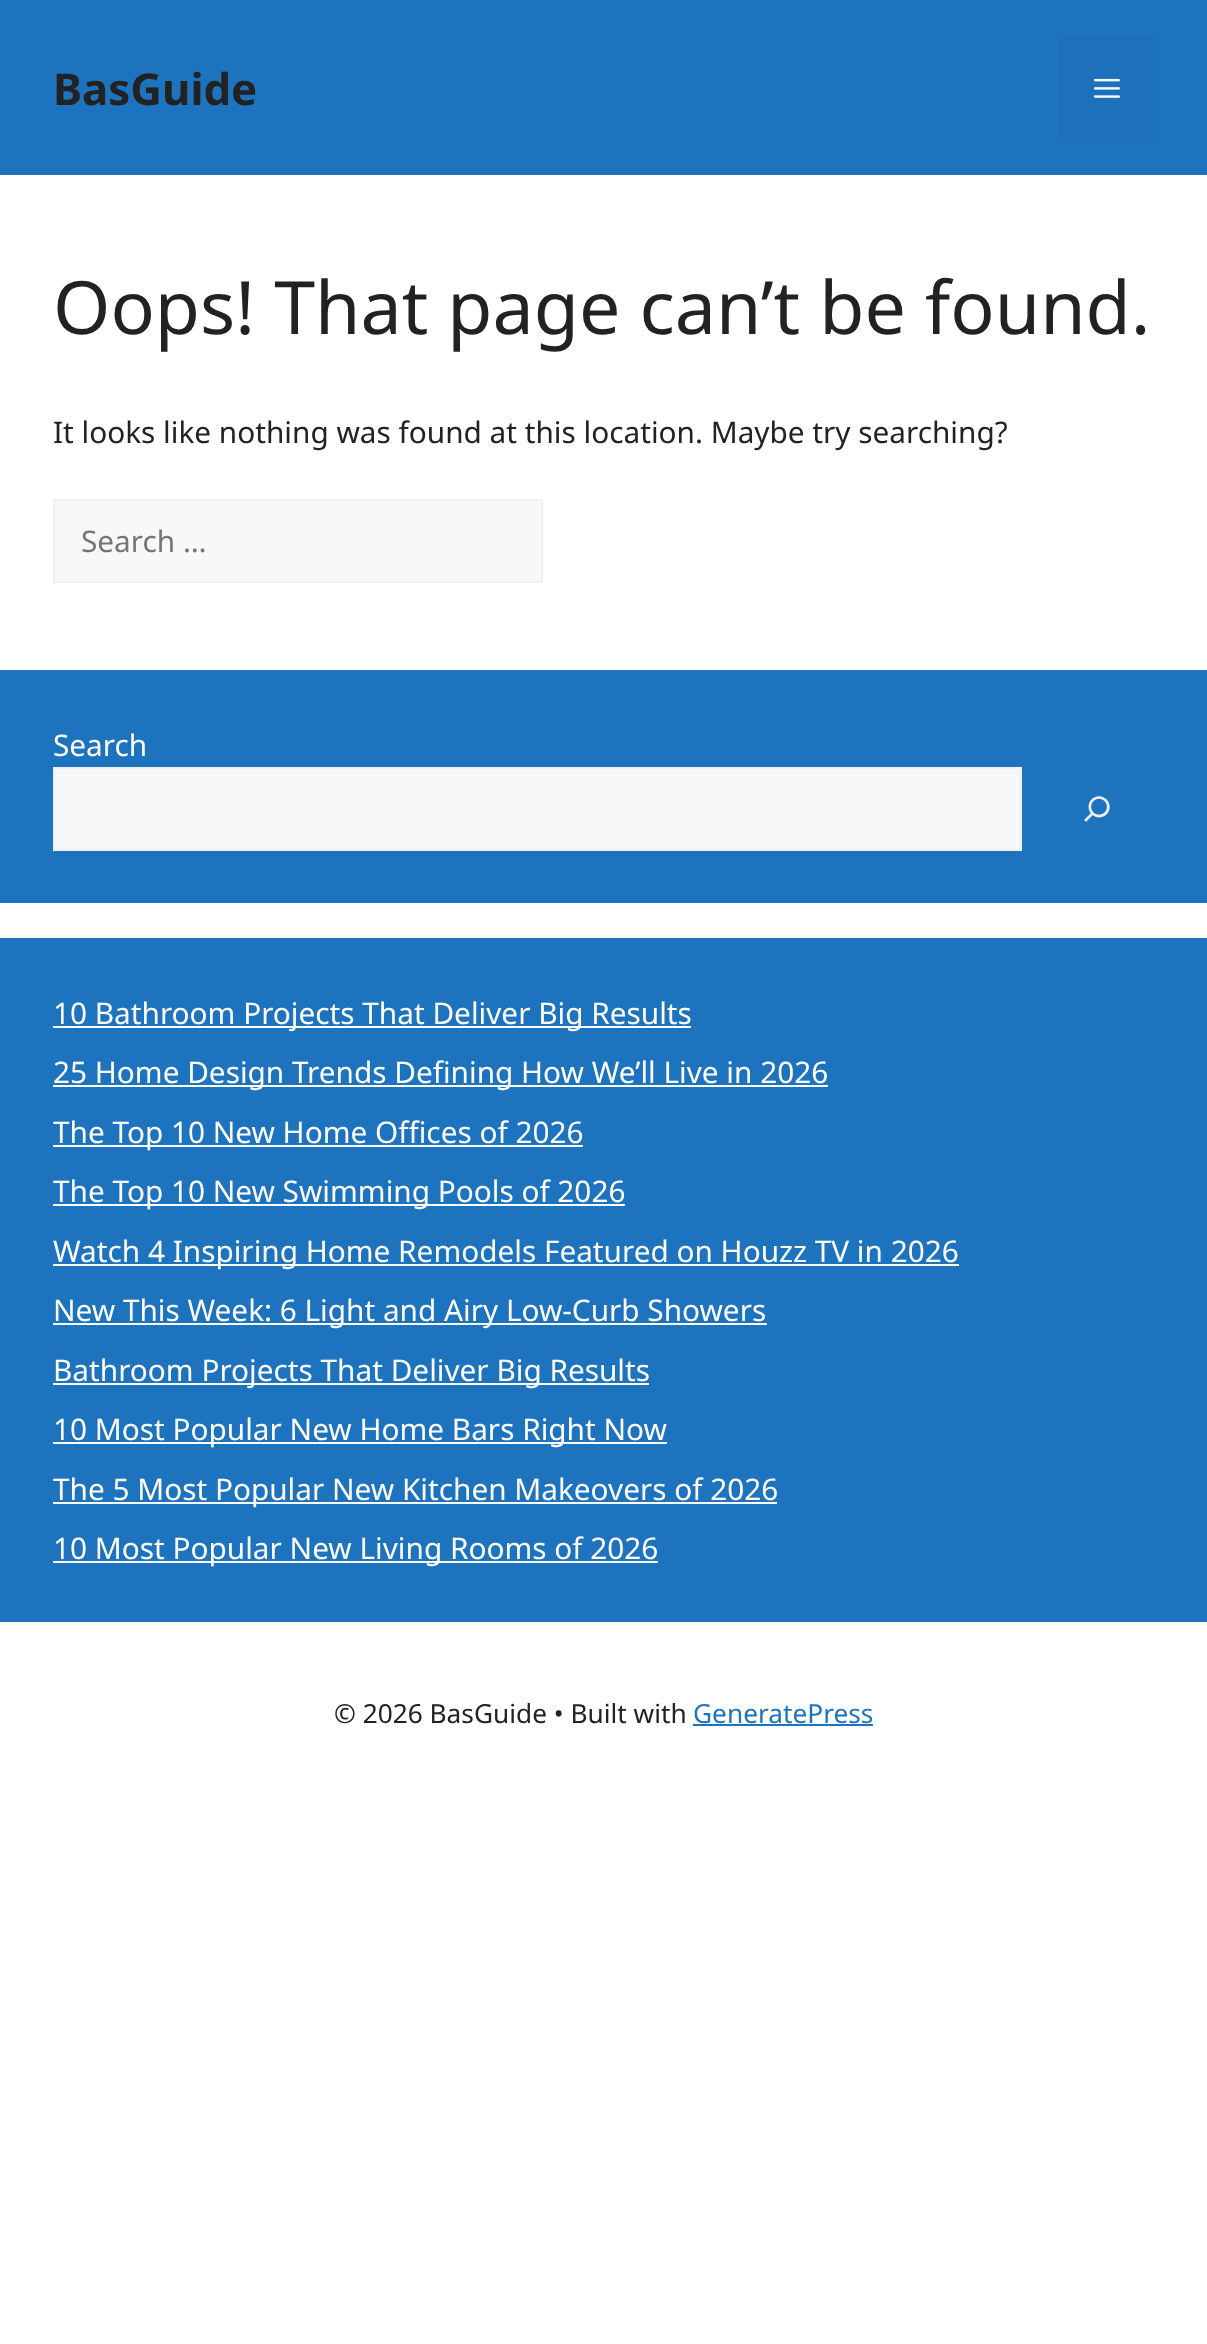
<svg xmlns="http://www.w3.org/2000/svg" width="1207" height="2344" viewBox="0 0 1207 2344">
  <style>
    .t1 { font: bold 43.75px Noto Sans; fill: #222; }
    .t2 { font: 73.5px Noto Sans; fill: #222; }
    .t3 { font: 29.75px Noto Sans; fill: #222; }
    .t4 { font: 29.75px Noto Sans; fill: #757575; }
    .t5 { font: 29.75px Noto Sans; fill: #fff; }
    .t6 { font: 26.25px Noto Sans; fill: #222; }
    .t7 { font: 26.25px Noto Sans; fill: #1e73be; }
  </style>
  <rect width="100%" height="100%" fill="#fff"/>
  <rect x="0" y="0" width="1207" height="175" fill="#1e73be"/>
  <text x="53" y="105" class="t1">BasGuide</text>
  <rect x="1059" y="35" width="96" height="105" fill="#1d71ba"/>
  <image x="1094" y="78" width="26" height="20" href="images/1.png"/>
  <text x="53" y="334" class="t2">Oops! That page can’t be found.</text>
  <text x="53" y="443" class="t3">It looks like nothing was found at this location. Maybe try searching?</text>
  <rect x="54" y="500" width="488" height="82" fill="#f7f8f9" stroke="#f0f0f0" stroke-width="2"/>
  <text x="81" y="552" class="t4">Search …</text>
  <rect x="0" y="670" width="1207" height="233" fill="#1e73be"/>
  <text x="53" y="756" class="t5">Search</text>
  <rect x="54" y="768" width="967" height="82" fill="#f7f8f9" stroke="#f0f0f0" stroke-width="2"/>
  <image x="1084" y="796" width="26" height="26" href="images/2.png"/>
  <rect x="0" y="938" width="1207" height="684" fill="#1e73be"/>
  <rect x="53" y="1026" width="638" height="2" fill="#fff"/>
  <text x="53" y="1024" class="t5">10 Bathroom Projects That Deliver Big Results</text>
  <rect x="53" y="1085" width="775" height="2" fill="#fff"/>
  <text x="53" y="1083" class="t5">25 Home Design Trends Defining How We’ll Live in 2026</text>
  <rect x="53" y="1145" width="530" height="2" fill="#fff"/>
  <text x="53" y="1143" class="t5">The Top 10 New Home Offices of 2026</text>
  <rect x="53" y="1204" width="572" height="2" fill="#fff"/>
  <text x="53" y="1202" class="t5">The Top 10 New Swimming Pools of 2026</text>
  <rect x="53" y="1264" width="906" height="2" fill="#fff"/>
  <text x="53" y="1262" class="t5">Watch 4 Inspiring Home Remodels Featured on Houzz TV in 2026</text>
  <rect x="53" y="1323" width="714" height="2" fill="#fff"/>
  <text x="53" y="1321" class="t5">New This Week: 6 Light and Airy Low-Curb Showers</text>
  <rect x="53" y="1383" width="596" height="2" fill="#fff"/>
  <text x="53" y="1381" class="t5">Bathroom Projects That Deliver Big Results</text>
  <rect x="53" y="1442" width="614" height="2" fill="#fff"/>
  <text x="53" y="1440" class="t5">10 Most Popular New Home Bars Right Now</text>
  <rect x="53" y="1502" width="724" height="2" fill="#fff"/>
  <text x="53" y="1500" class="t5">The 5 Most Popular New Kitchen Makeovers of 2026</text>
  <rect x="53" y="1561" width="605" height="2" fill="#fff"/>
  <text x="53" y="1559" class="t5">10 Most Popular New Living Rooms of 2026</text>
  <text x="334" y="1723" class="t6">© 2026 BasGuide • Built with</text>
  <text x="693" y="1723" class="t7">GeneratePress</text>
  <rect x="693" y="1724" width="180" height="2" fill="#1e73be"/>
</svg>
